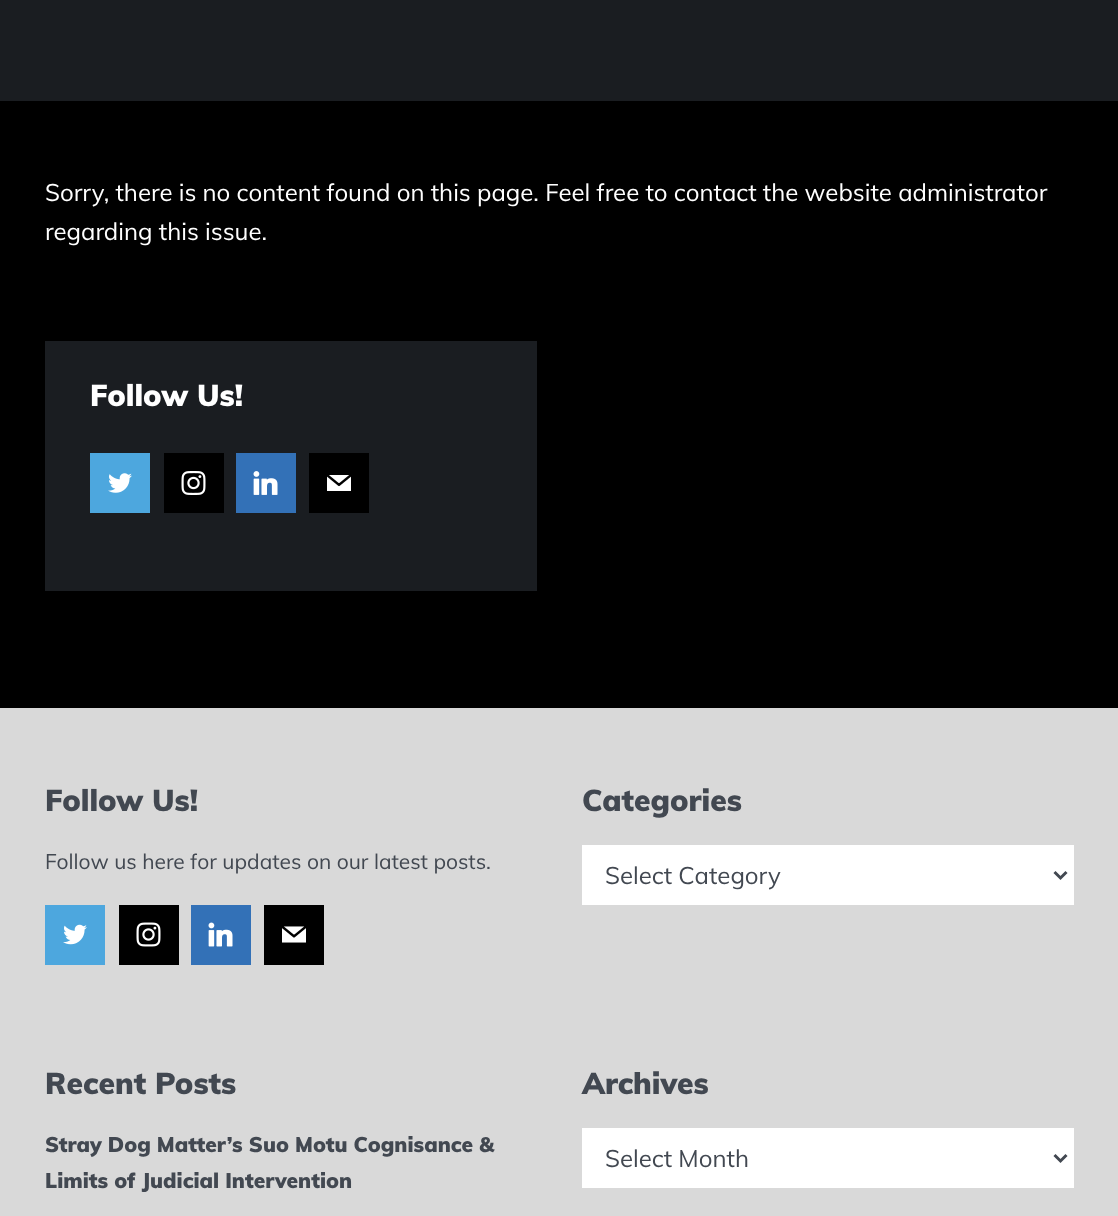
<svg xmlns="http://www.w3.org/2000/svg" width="1118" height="1216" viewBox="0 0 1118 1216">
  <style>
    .t1 { font: 24px Muli; fill: #fff; }
    .t2 { font: 900 30px Muli; fill: #fff; }
    .t3 { font: 900 30px Muli; fill: #424851; }
    .t4 { font: 21px Muli; fill: #424851; }
    .t5 { font: 24px Muli; fill: #424851; }
    .t6 { font: 900 21px Muli; fill: #424851; }
  </style>
  <rect width="100%" height="100%" fill="#000"/>
  <rect x="0" y="0" width="1118" height="101" fill="#1a1d21"/>
  <text x="45" y="201" class="t1">Sorry, there is no content found on this page. Feel free to contact the website administrator</text>
  <text x="45" y="240" class="t1">regarding this issue.</text>
  <rect x="45" y="341" width="492" height="250" fill="#1a1d21"/>
  <text x="90" y="406" class="t2">Follow Us!</text>
  <rect x="90" y="453" width="60" height="60" fill="#4da7de"/>
  <image x="108" y="473" width="24" height="20" href="images/1.png"/>
  <rect x="164" y="453" width="60" height="60" fill="#000"/>
  <image x="181" y="471" width="25" height="24" href="images/2.png"/>
  <rect x="236" y="453" width="60" height="60" fill="#3371b7"/>
  <image x="253" y="471" width="25" height="24" href="images/3.png"/>
  <rect x="309" y="453" width="60" height="60" fill="#000"/>
  <image x="327" y="475" width="24" height="16" href="images/4.png"/>
  <rect x="0" y="708" width="1118" height="508" fill="#d9d9d9"/>
  <text x="45" y="811" class="t3">Follow Us!</text>
  <text x="45" y="869" class="t4">Follow us here for updates on our latest posts.</text>
  <rect x="45" y="905" width="60" height="60" fill="#4da7de"/>
  <image x="63" y="924" width="24" height="21" href="images/5.png"/>
  <rect x="119" y="905" width="60" height="60" fill="#000"/>
  <image x="136" y="922" width="25" height="25" href="images/6.png"/>
  <rect x="191" y="905" width="60" height="60" fill="#3371b7"/>
  <image x="208" y="922" width="25" height="25" href="images/7.png"/>
  <rect x="264" y="905" width="60" height="60" fill="#000"/>
  <image x="282" y="926" width="24" height="17" href="images/8.png"/>
  <text x="582" y="811" class="t3">Categories</text>
  <rect x="582" y="845" width="492" height="60" fill="#fff"/>
  <path d="M1054.5 872L1060.5 878L1066.5 872" fill="none" stroke="#424851" stroke-width="3"/>
  <text x="605" y="884" class="t5">Select Category</text>
  <text x="45" y="1094" class="t3">Recent Posts</text>
  <text x="45" y="1152" class="t6">Stray Dog Matter’s Suo Motu Cognisance &amp;</text>
  <text x="45" y="1188" class="t6">Limits of Judicial Intervention</text>
  <text x="582" y="1094" class="t3">Archives</text>
  <rect x="582" y="1128" width="492" height="60" fill="#fff"/>
  <path d="M1054.5 1155L1060.5 1161L1066.5 1155" fill="none" stroke="#424851" stroke-width="3"/>
  <text x="605" y="1167" class="t5">Select Month</text>
</svg>
